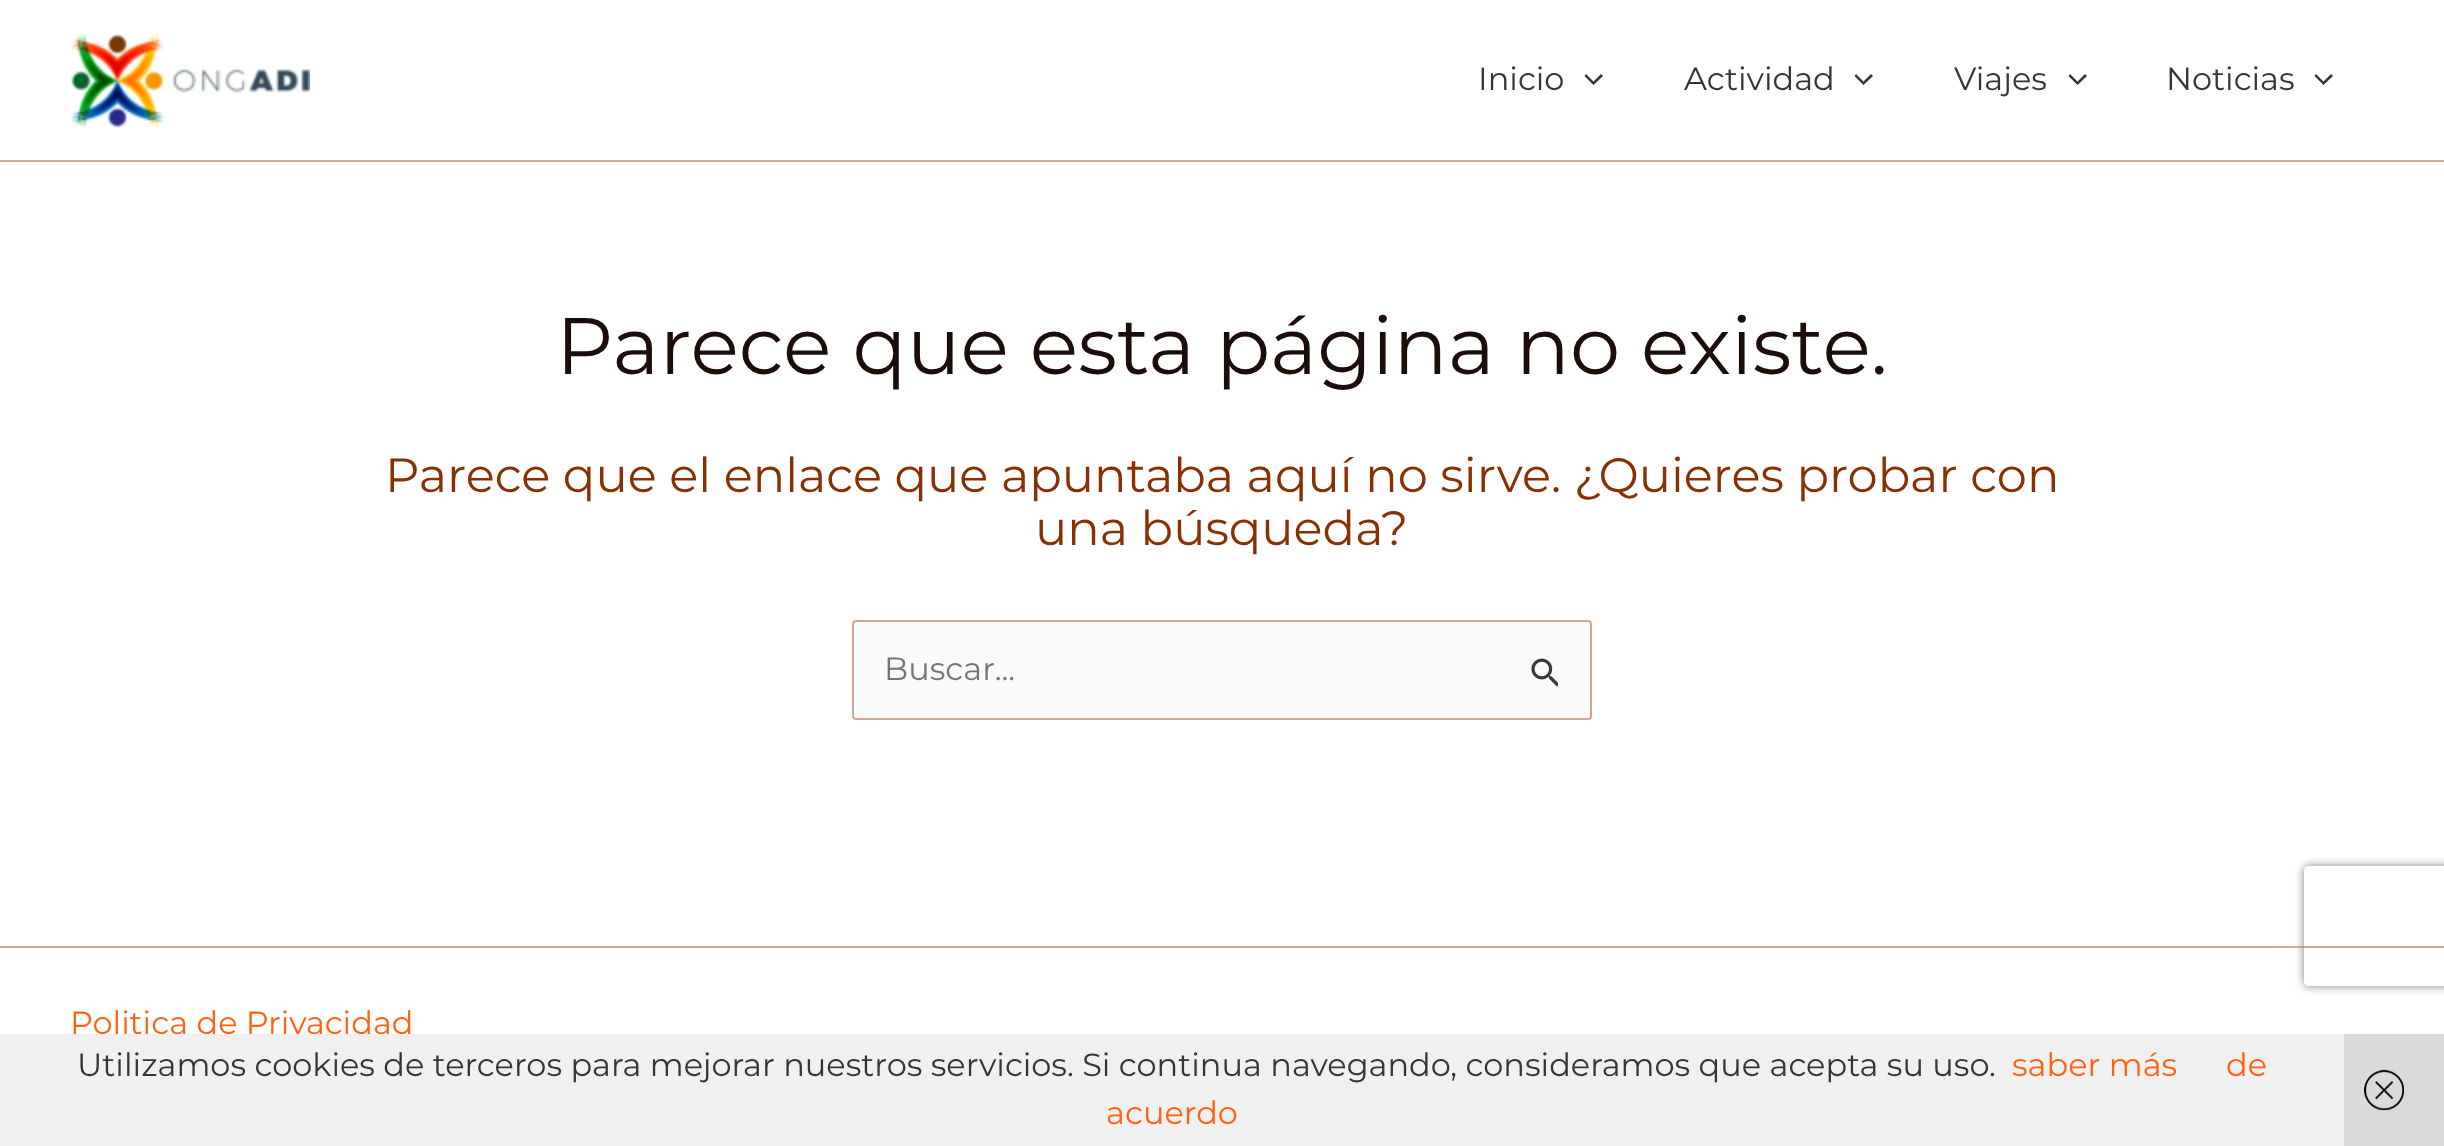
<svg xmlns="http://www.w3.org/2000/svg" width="2444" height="1146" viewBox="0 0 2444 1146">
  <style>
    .t1 { font: 32px Montserrat; fill: #353535; }
    .t2 { font: 80px Montserrat; fill: #1c0d0a; }
    .t3 { font: 48px Montserrat; fill: #883001; }
    .t4 { font: 32px Montserrat; fill: #757575; }
    .t5 { font: 32px Montserrat; fill: #ff6210; }
  </style>
  <defs>
    <clipPath id="clip1"><path d="M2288 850H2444V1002H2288ZM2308 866H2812C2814 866 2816 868 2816 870V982C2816 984 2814 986 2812 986H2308C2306 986 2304 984 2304 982V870C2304 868 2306 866 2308 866Z" clip-rule="evenodd"/></clipPath>
  </defs>
  <rect width="100%" height="100%" fill="#fff"/>
  <rect x="0" y="160" width="2444" height="2" fill="#d5a991"/>
  <image x="70" y="34" width="240" height="94" href="images/1.png"/>
  <text x="1478" y="90" class="t1">Inicio</text>
  <path d="M1584.5 76L1593.5 85L1603 76L1601 74L1593.5 81.5L1586 74Z" fill="#353535"/>
  <text x="1684" y="90" class="t1">Actividad</text>
  <path d="M1854.5 76L1863.5 85L1873 76L1871 74L1863.5 81.5L1856 74Z" fill="#353535"/>
  <text x="1954" y="90" class="t1">Viajes</text>
  <path d="M2068.5 76L2077.5 85L2087 76L2085 74L2077.5 81.5L2070 74Z" fill="#353535"/>
  <text x="2166" y="90" class="t1">Noticias</text>
  <path d="M2314.5 76L2323.5 85L2333 76L2331 74L2323.5 81.5L2316 74Z" fill="#353535"/>
  <text x="556" y="374" class="t2">Parece que esta página no existe.</text>
  <text x="385" y="492" class="t3">Parece que el enlace que apuntaba aquí no sirve. ¿Quieres probar con</text>
  <text x="1035" y="545" class="t3">una búsqueda?</text>
  <rect x="853" y="621" width="738" height="98" rx="3" fill="#fafafa" stroke="#d2a68f" stroke-width="2"/>
  <text x="884" y="680" class="t4">Buscar...</text>
  <image x="1531" y="658" width="27" height="29" href="images/2.png"/>
  <rect x="0" y="946" width="2444" height="2" fill="#d5a991"/>
  <text x="70" y="1034" class="t5">Politica de Privacidad</text>
  <g clip-path="url(#clip1)">
    <rect x="2304" y="866" width="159" height="120" rx="4" fill="#808080" filter="blur(5px)"/>
  </g>
  <rect x="0" y="1034" width="2344" height="112" fill="#eeeeeee6"/>
  <text x="77" y="1076" class="t1">Utilizamos cookies de terceros para mejorar nuestros servicios. Si continua navegando, consideramos que acepta su uso.</text>
  <text x="2012" y="1076" class="t5">saber más</text>
  <text x="2226" y="1076" class="t5">de</text>
  <text x="1106" y="1124" class="t5">acuerdo</text>
  <rect x="2344" y="1034" width="100" height="112" fill="#dadada"/>
  <image x="2364" y="1069" width="40" height="42" href="images/3.png"/>
</svg>
